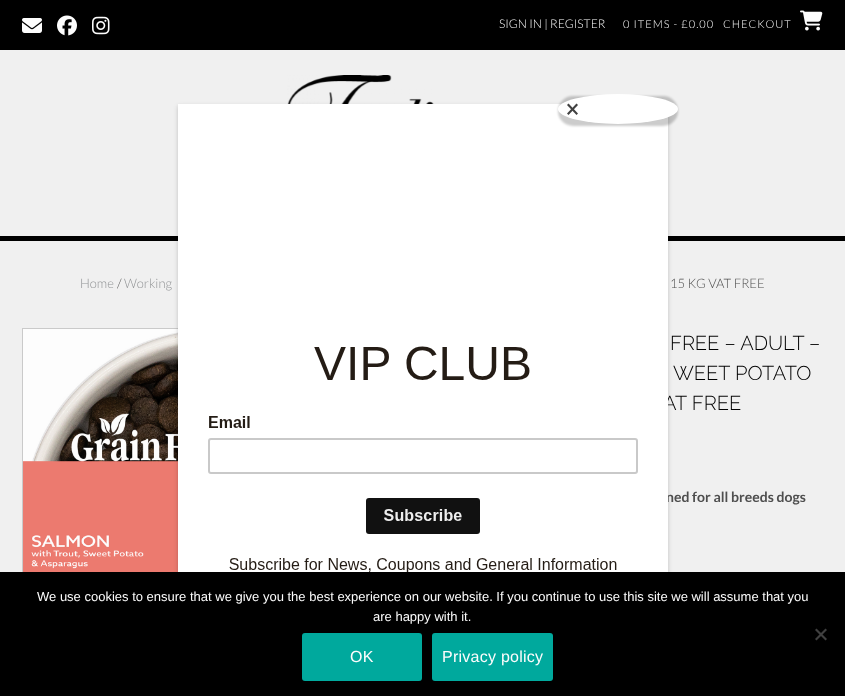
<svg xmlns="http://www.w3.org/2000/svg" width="845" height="696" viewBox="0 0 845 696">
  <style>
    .t1 { font: 300 12px Lato; fill: #fcfcfc; }
    .t2 { font: 300 11px Lato; letter-spacing: 1px; fill: #fcfcfc; }
    .t3 { font: 300 20px Raleway; fill: #000; }
    .t4 { font: bold 14px Lato; fill: #4e4e4e; }
    .t5 { font: 300 13px Lato; fill: #929496; }
    .t6 { font: 300 13px Lato; fill: #4e4e4e; }
    .t7 { font: 13px Liberation Sans; fill: #fcfcfc; }
    .t8 { font: 16px Liberation Sans; letter-spacing: 0.25px; fill: #fcfcfc; }
  </style>
  <rect width="100%" height="100%" fill="#f0f0f0"/>
  <rect x="0" y="0" width="845" height="50" fill="#000"/>
  <image x="22" y="18" width="20" height="15" href="images/1.png"/>
  <image x="57" y="15" width="20" height="21" href="images/2.png"/>
  <image x="92" y="16" width="18" height="19" href="images/3.png"/>
  <text x="499" y="28" class="t1">SIGN IN | REGISTER</text>
  <text x="623" y="28" class="t2">0 ITEMS - £0.00</text>
  <text x="723" y="28" class="t2">CHECKOUT</text>
  <image x="800" y="10" width="23" height="21" href="images/4.png"/>
  <image x="287" y="75" width="147" height="29" href="images/5.png"/>
  <rect x="0" y="236" width="845" height="5" fill="#000"/>
  <rect x="22.5" y="328.5" width="383" height="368" fill="none" stroke="#cacaca"/>
  <image x="23" y="329" width="155" height="243" href="images/7.png"/>
  <rect x="178" y="106" width="490" height="532" fill="#00000033" filter="blur(2px)"/>
  <text x="663" y="410" class="t3">AT FREE</text>
  <text x="666" y="502" class="t4">ned for all breeds dogs</text>
  <image x="178" y="104" width="490" height="468" href="images/6.png"/>
  <rect x="558" y="96" width="120" height="30" rx="15" fill="#00000033" filter="blur(1px)"/>
  <ellipse cx="618" cy="109" rx="60" ry="15" fill="#fff"/>
  <path d="M576.5 103.5L578 105L568.5 115L567 113.5Z" fill="#414141"/>
  <path d="M567 105L568.5 103.5L578 113.5L576.5 115Z" fill="#414141"/>
  <text x="80" y="288" class="t5">Home</text>
  <text x="117" y="288" class="t6">/</text>
  <text x="124" y="288" class="t5">Working</text>
  <text x="670" y="288" class="t6">15 KG VAT FREE</text>
  <text x="670" y="350" class="t3">FREE – ADULT –</text>
  <text x="673" y="380" class="t3">WEET POTATO</text>
  <rect x="0" y="572" width="845" height="124" fill="#000"/>
  <text x="37" y="601" class="t7">We use cookies to ensure that we give you the best experience on our website. If you continue to use this site we will assume that you</text>
  <text x="373" y="621" class="t7">are happy with it.</text>
  <path d="M825.5 628.5L827 630L816.5 640.5L815 639Z" fill="#404040"/>
  <path d="M815 630L816.5 628.5L827 639L825.5 640.5Z" fill="#404040"/>
  <rect x="302" y="633" width="120" height="48" rx="3" fill="#00a99d"/>
  <text x="350" y="662" class="t8">OK</text>
  <rect x="432" y="633" width="121" height="48" rx="3" fill="#00a99d"/>
  <text x="442" y="662" class="t8">Privacy policy</text>
</svg>
